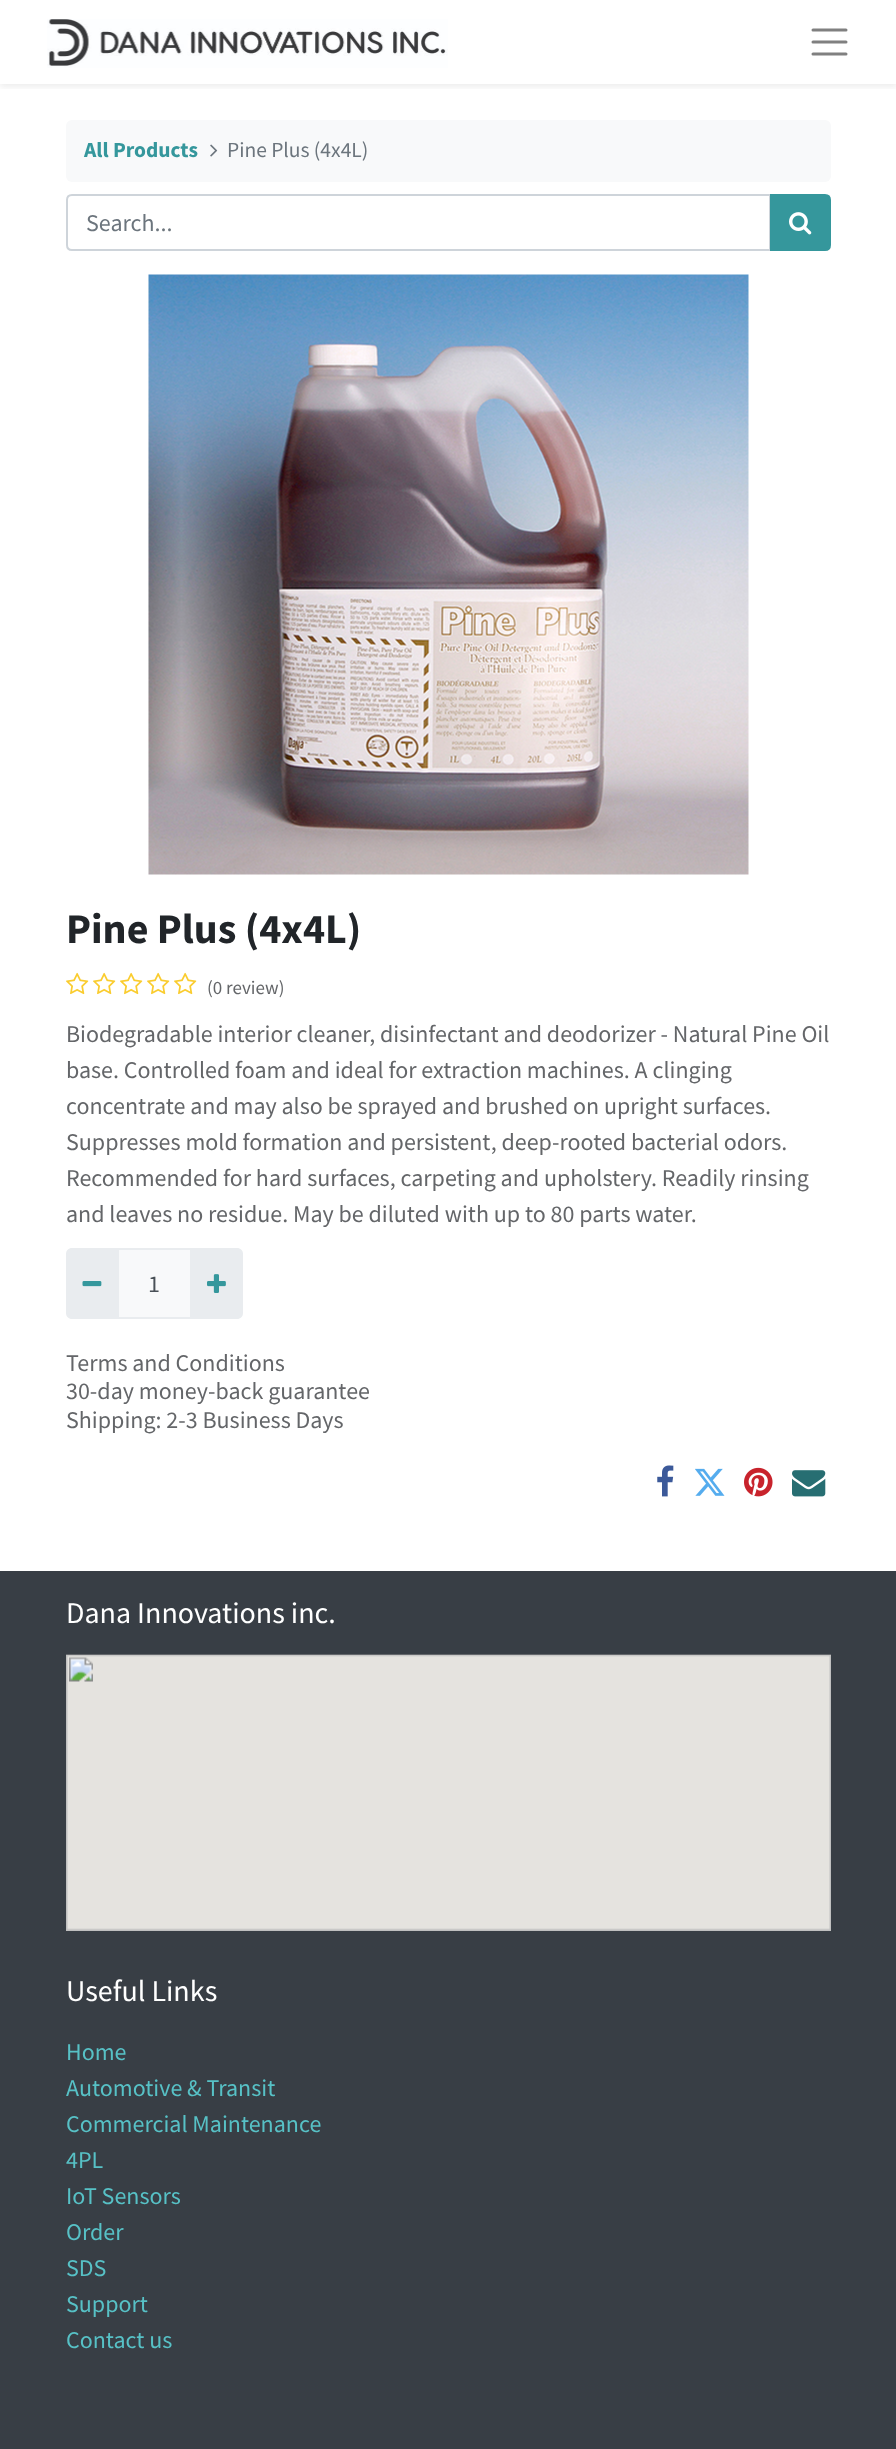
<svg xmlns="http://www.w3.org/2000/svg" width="896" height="2449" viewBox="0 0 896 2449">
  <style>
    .t1 { font: bold 21.5px Source Sans Pro; fill: #35979c; }
    .t2 { font: 21.5px Source Sans Pro; fill: #6c757d; }
    .t3 { font: 24px Source Sans Pro; fill: #6c757d; }
    .t4 { font: bold 42px Source Sans Pro; fill: #212529; }
    .t5 { font: 19px Source Sans Pro; fill: #646669; }
    .t6 { font: 24px Source Sans Pro; fill: #646669; }
    .t7 { font: 24px Source Sans Pro; fill: #495057; }
    .t8 { font: 30px Source Sans Pro; fill: #fff; }
    .t9 { font: 24px Source Sans Pro; fill: #57c1c6; }
  </style>
  <defs>
    <clipPath id="clip1"><rect x="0" y="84" width="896" height="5"/></clipPath>
  </defs>
  <rect width="100%" height="100%" fill="#fff"/>
  <g clip-path="url(#clip1)">
    <rect x="0" y="3" width="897" height="84" fill="#00000012" filter="blur(3px)"/>
  </g>
  <image x="47" y="19" width="401" height="49" href="images/1.png"/>
  <path d="M813 30H846M813 42H846M813 54H846" fill="none" stroke="#808080" stroke-width="3" stroke-linecap="round"/>
  <rect x="66" y="120" width="765" height="62" rx="6" fill="#f8f9fa"/>
  <text x="84" y="157" class="t1">All Products</text>
  <image x="210" y="144" width="8" height="13" href="images/2.png"/>
  <text x="227" y="157" class="t2">Pine Plus (4x4L)</text>
  <path d="M72 195H770V250H72C69 250 67 248 67 245V200C67 197 69 195 72 195Z" fill="none" stroke="#ced4da" stroke-width="2"/>
  <text x="86" y="231" class="t3">Search...</text>
  <path d="M771 195H825C828 195 830 197 830 200V245C830 248 828 250 825 250H771Z" fill="#35979c" stroke="#35979c" stroke-width="2"/>
  <image x="789" y="212" width="23" height="23" href="images/3.png"/>
  <image x="148" y="274" width="601" height="601" href="images/4.png"/>
  <text x="66" y="943" class="t4">Pine Plus (4x4L)</text>
  <image x="66" y="972" width="23" height="23" href="images/5.png"/>
  <image x="93" y="972" width="23" height="23" href="images/5.png"/>
  <image x="120" y="972" width="23" height="23" href="images/5.png"/>
  <image x="147" y="972" width="23" height="23" href="images/5.png"/>
  <image x="174" y="972" width="23" height="23" href="images/5.png"/>
  <text x="207" y="994" class="t5">(0 review)</text>
  <text x="66" y="1042" class="t6">Biodegradable interior cleaner, disinfectant and deodorizer - Natural Pine Oil</text>
  <text x="66" y="1078" class="t6">base. Controlled foam and ideal for extraction machines. A clinging</text>
  <text x="66" y="1114" class="t6">concentrate and may also be sprayed and brushed on upright surfaces.</text>
  <text x="66" y="1150" class="t6">Suppresses mold formation and persistent, deep-rooted bacterial odors.</text>
  <text x="66" y="1186" class="t6">Recommended for hard surfaces, carpeting and upholstery. Readily rinsing</text>
  <text x="66" y="1222" class="t6">and leaves no residue. May be diluted with up to 80 parts water.</text>
  <rect x="118" y="1249" width="73" height="69" fill="#f8f9fa" stroke="#e9ecef" stroke-width="2"/>
  <path d="M72 1248H119V1319H72C68.5 1319 66 1316.5 66 1313V1254C66 1250.5 68.5 1248 72 1248Z" fill="#e9ecef"/>
  <image x="82" y="1281" width="20" height="6" href="images/6.png"/>
  <text x="148" y="1292" class="t7">1</text>
  <path d="M191 1248H237C240.5 1248 243 1250.5 243 1254V1313C243 1316.5 240.5 1319 237 1319H191Z" fill="#e9ecef"/>
  <image x="207" y="1274" width="19" height="19" href="images/7.png"/>
  <text x="66" y="1371" class="t6">Terms and Conditions</text>
  <text x="66" y="1399" class="t6">30-day money-back guarantee</text>
  <text x="66" y="1428" class="t6">Shipping: 2-3 Business Days</text>
  <image x="657" y="1465" width="17" height="32" href="images/8.png"/>
  <image x="695" y="1468" width="30" height="28" href="images/9.png"/>
  <image x="744" y="1467" width="29" height="30" href="images/10.png"/>
  <image x="792" y="1470" width="34" height="27" href="images/11.png"/>
  <rect x="0" y="1571" width="896" height="878" fill="#383e45"/>
  <text x="66" y="1623" class="t8">Dana Innovations inc.</text>
  <image x="66" y="1654" width="765" height="277" href="images/12.png"/>
  <text x="66" y="2001" class="t8">Useful Links</text>
  <text x="66" y="2060" class="t9">Home</text>
  <text x="66" y="2096" class="t9">Automotive &amp; Transit</text>
  <text x="66" y="2132" class="t9">Commercial Maintenance</text>
  <text x="66" y="2168" class="t9">4PL</text>
  <text x="66" y="2204" class="t9">IoT Sensors</text>
  <text x="66" y="2240" class="t9">Order</text>
  <text x="66" y="2276" class="t9">SDS</text>
  <text x="66" y="2312" class="t9">Support</text>
  <text x="66" y="2348" class="t9">Contact us</text>
</svg>
